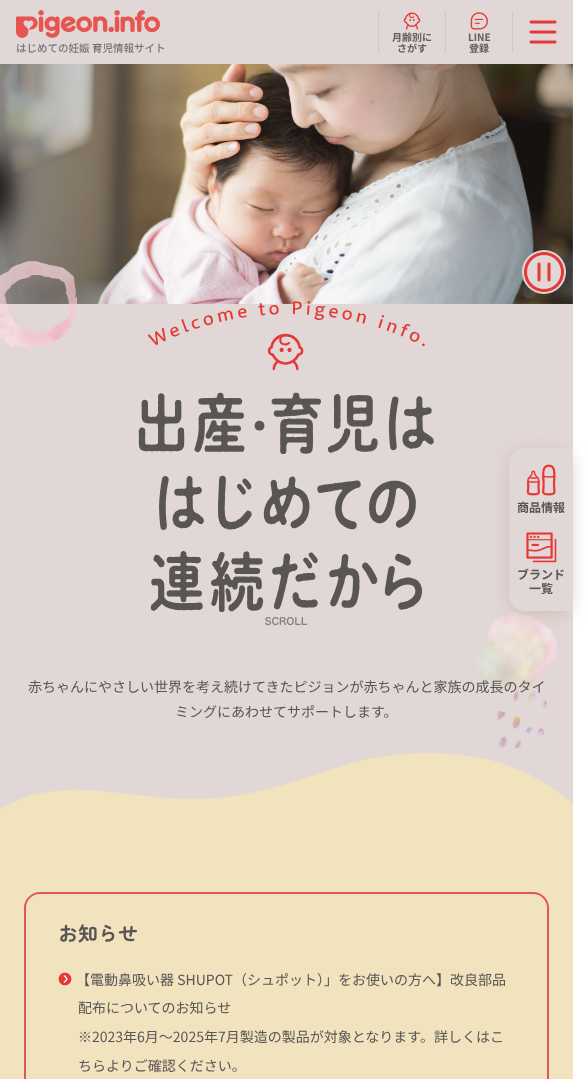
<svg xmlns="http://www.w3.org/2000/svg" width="588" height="1079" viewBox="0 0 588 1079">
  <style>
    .t1 { font: 500 10.5px Noto Sans JP; fill: #757575; }
    .t2 { font: bold 10px Noto Sans JP; fill: #615d5d; }
    .t3 { font: bold 12px Noto Sans JP; fill: #595555; }
    .t4 { font: 14px Noto Sans JP; fill: #595555; }
    .t5 { font: bold 20px Zen Maru Gothic; fill: #595555; }
  </style>
  <rect width="100%" height="100%" fill="#fff"/>
  <rect x="0" y="0" width="573" height="810" fill="#e1d7d7"/>
  <image x="16" y="10" width="144" height="28" href="images/1.png"/>
  <text x="16" y="52" class="t1">はじめての妊娠・</text>
  <text x="92" y="52" class="t1">育児情報サイト</text>
  <rect x="378" y="11" width="1" height="42" fill="#ccc8c8"/>
  <image x="403" y="12" width="18" height="18" href="images/2.png"/>
  <text x="392" y="41" class="t2">月齢別に</text>
  <text x="397" y="52" class="t2">さがす</text>
  <rect x="512" y="11" width="1" height="42" fill="#ccc8c8"/>
  <rect x="445" y="11" width="1" height="42" fill="#ccc8c8"/>
  <image x="470" y="12" width="18" height="18" href="images/3.png"/>
  <text x="468" y="41" class="t2">LINE</text>
  <text x="469" y="52" class="t2">登録</text>
  <image x="529" y="20" width="28" height="24" href="images/4.png"/>
  <image x="0" y="64" width="573" height="240" href="images/5.png"/>
  <image x="265" y="617" width="43" height="9" href="images/11.png"/>
  <image x="0" y="261" width="558" height="487" href="images/8.png"/>
  <circle cx="544" cy="272" r="22" fill="#e1d7d7"/>
  <image x="524" y="252" width="40" height="40" href="images/6.png"/>
  <image x="138" y="301" width="296" height="312" href="images/7.png"/>
  <rect x="509" y="452" width="64" height="163" rx="16" fill="#caaa9a80" filter="blur(8px)"/>
  <path d="M525 448H573V611H525C516 611 509 604 509 595V464C509 455 516 448 525 448Z" fill="#e1d7d7"/>
  <image x="526" y="464" width="30" height="32" href="images/9.png"/>
  <text x="517" y="512" class="t3">商品情報</text>
  <image x="526" y="532" width="31" height="31" href="images/10.png"/>
  <text x="517" y="579" class="t3">ブランド</text>
  <text x="529" y="593" class="t3">一覧</text>
  <text x="28" y="692" class="t4">赤ちゃんにやさしい世界を考え続けてきたピジョンが赤ちゃんと家族の成長のタイ</text>
  <text x="175" y="717" class="t4">ミングにあわせてサポートします。</text>
  <image x="0" y="753" width="573" height="91" href="images/12.png"/>
  <rect x="0" y="844" width="573" height="235" fill="#f0e3be"/>
  <rect x="25" y="893" width="523" height="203" rx="15" fill="none" stroke="#e65550" stroke-width="2"/>
  <text x="58" y="941" class="t5">お知らせ</text>
  <image x="58" y="972" width="14" height="14" href="images/13.png"/>
  <text x="76" y="985" class="t4">【電動鼻吸い器 SHUPOT（シュポット）」をお使いの方へ】改良部品</text>
  <text x="78" y="1013" class="t4">配布についてのお知らせ</text>
  <text x="78" y="1042" class="t4">※2023年6月～2025年7月製造の製品が対象となります。詳しくはこ</text>
  <text x="78" y="1071" class="t4">ちらよりご確認ください。</text>
</svg>
